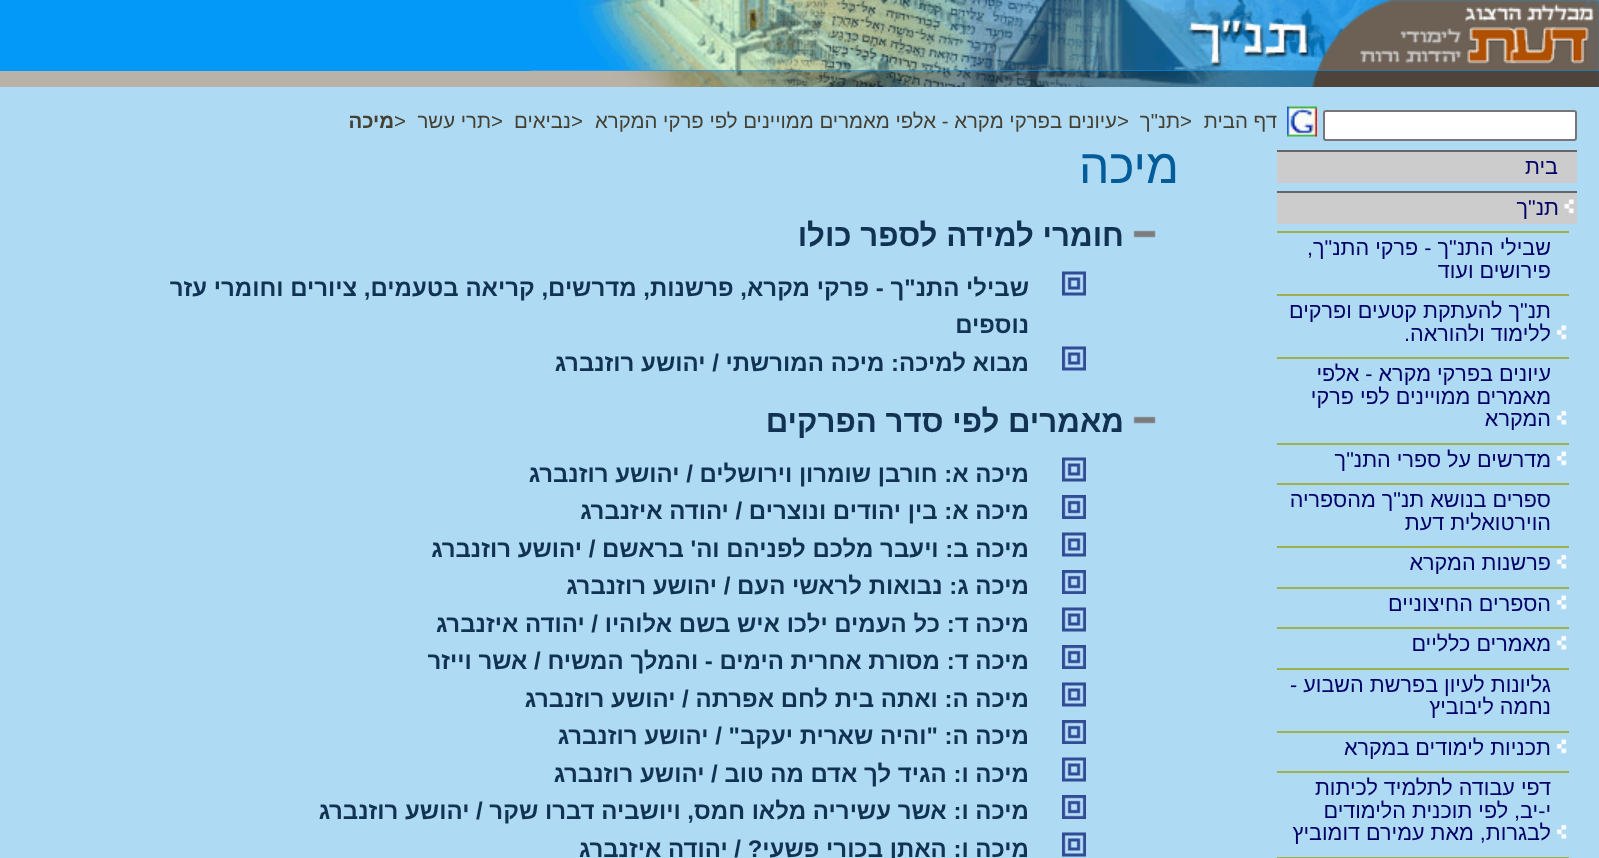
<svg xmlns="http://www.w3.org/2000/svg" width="1599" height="858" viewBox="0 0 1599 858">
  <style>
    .t1 { font: 20.4px Liberation Sans; direction: rtl; fill: #444032; }
    .t2 { font: 20.4px Liberation Sans; fill: #444032; }
    .t3 { font: bold 20.4px Liberation Sans; direction: rtl; fill: #444032; }
    .t4 { font: 21.6px Liberation Sans; direction: rtl; fill: #006; }
    .t5 { font: 48px Liberation Sans; direction: rtl; fill: #025c99; }
    .t6 { font: bold 31.25px Liberation Sans; direction: rtl; fill: #113253; }
    .t7 { font: bold 24px Liberation Sans; direction: rtl; fill: #113253; }
  </style>
  <rect width="100%" height="100%" fill="#aedaf4"/>
  <rect x="0" y="0" width="1599" height="71" fill="#0399f8"/>
  <image x="1315" y="0" width="284" height="71" href="images/1.png"/>
  <image x="575" y="0" width="741" height="71" href="images/2.png"/>
  <rect x="0" y="71" width="531" height="16" fill="#b9b2a8"/>
  <image x="531" y="70" width="1068" height="17" href="images/3.png"/>
  <text x="1277" y="128" class="t1">דף הבית</text>
  <text x="1180" y="128" class="t2">&gt;</text>
  <text x="1180" y="128" class="t1">תנ"ך</text>
  <text x="1117" y="128" class="t2">&gt;</text>
  <text x="1117" y="128" class="t1">עיונים בפרקי מקרא - אלפי מאמרים ממויינים לפי פרקי המקרא</text>
  <text x="571" y="128" class="t2">&gt;</text>
  <text x="571" y="128" class="t1">נביאים</text>
  <text x="491" y="128" class="t2">&gt;</text>
  <text x="491" y="128" class="t1">תרי עשר</text>
  <text x="394" y="128" class="t2">&gt;</text>
  <text x="394" y="128" class="t3">מיכה</text>
  <rect x="1324" y="111" width="252" height="29" rx="2" fill="#fff" stroke="#767676" stroke-width="2"/>
  <image x="1287" y="106" width="30" height="31" href="images/4.png"/>
  <rect x="1277" y="152" width="300" height="31" fill="#ccc"/>
  <rect x="1277" y="150" width="300" height="2" fill="#666"/>
  <text x="1558" y="174" class="t4">בית</text>
  <rect x="1277" y="193" width="300" height="31" fill="#ccc"/>
  <rect x="1277" y="191" width="300" height="2" fill="#666"/>
  <image x="1564" y="199" width="10" height="15" href="images/5.png"/>
  <text x="1559" y="215" class="t4">תנ"ך</text>
  <rect x="1277" y="231" width="292" height="2" fill="#a0af4b"/>
  <text x="1551" y="255" class="t4">שבילי התנ"ך - פרקי התנ"ך,</text>
  <text x="1551" y="278" class="t4">פירושים ועוד</text>
  <rect x="1277" y="294" width="292" height="2" fill="#a0af4b"/>
  <image x="1556" y="325" width="11" height="15" href="images/6.png"/>
  <text x="1551" y="318" class="t4">תנ"ך להעתקת קטעים ופרקים</text>
  <text x="1551" y="341" class="t4">ללימוד ולהוראה.</text>
  <rect x="1277" y="357" width="292" height="2" fill="#a0af4b"/>
  <image x="1556" y="410" width="11" height="15" href="images/7.png"/>
  <text x="1551" y="381" class="t4">עיונים בפרקי מקרא - אלפי</text>
  <text x="1551" y="404" class="t4">מאמרים ממויינים לפי פרקי</text>
  <text x="1551" y="426" class="t4">המקרא</text>
  <rect x="1277" y="443" width="292" height="2" fill="#a0af4b"/>
  <image x="1556" y="451" width="11" height="15" href="images/6.png"/>
  <text x="1551" y="467" class="t4">מדרשים על ספרי התנ"ך</text>
  <rect x="1277" y="483" width="292" height="2" fill="#a0af4b"/>
  <text x="1551" y="507" class="t4">ספרים בנושא תנ"ך מהספריה</text>
  <text x="1551" y="530" class="t4">הוירטואלית דעת</text>
  <rect x="1277" y="546" width="292" height="2" fill="#a0af4b"/>
  <image x="1556" y="554" width="11" height="15" href="images/7.png"/>
  <text x="1551" y="570" class="t4">פרשנות המקרא</text>
  <rect x="1277" y="587" width="292" height="2" fill="#a0af4b"/>
  <image x="1556" y="595" width="11" height="15" href="images/6.png"/>
  <text x="1551" y="611" class="t4">הספרים החיצוניים</text>
  <rect x="1277" y="627" width="292" height="2" fill="#a0af4b"/>
  <image x="1556" y="635" width="11" height="15" href="images/7.png"/>
  <text x="1551" y="651" class="t4">מאמרים כלליים</text>
  <rect x="1277" y="668" width="292" height="2" fill="#a0af4b"/>
  <text x="1551" y="692" class="t4">גליונות לעיון בפרשת השבוע -</text>
  <text x="1551" y="714" class="t4">נחמה ליבוביץ</text>
  <rect x="1277" y="731" width="292" height="2" fill="#a0af4b"/>
  <image x="1556" y="739" width="11" height="15" href="images/6.png"/>
  <text x="1551" y="755" class="t4">תכניות לימודים במקרא</text>
  <rect x="1277" y="771" width="292" height="2" fill="#a0af4b"/>
  <image x="1556" y="824" width="11" height="15" href="images/7.png"/>
  <text x="1551" y="795" class="t4">דפי עבודה לתלמיד לכיתות</text>
  <text x="1551" y="818" class="t4">י-יב, לפי תוכנית הלימודים</text>
  <text x="1551" y="840" class="t4">לבגרות, מאת עמירם דומוביץ</text>
  <rect x="1277" y="857" width="292" height="1" fill="#a0af4b"/>
  <text x="1179" y="183" class="t5">מיכה</text>
  <image x="1133" y="230" width="23" height="8" href="images/8.png"/>
  <text x="1124" y="246" class="t6">חומרי למידה לספר כולו</text>
  <image x="1062" y="271" width="24" height="25" href="images/9.png"/>
  <text x="1029" y="296" class="t7">שבילי התנ"ך - פרקי מקרא, פרשנות, מדרשים, קריאה בטעמים, ציורים וחומרי עזר</text>
  <text x="1029" y="333" class="t7">נוספים</text>
  <image x="1062" y="346" width="24" height="25" href="images/9.png"/>
  <text x="1029" y="371" class="t7">מבוא למיכה: מיכה המורשתי / יהושע רוזנברג</text>
  <image x="1133" y="416" width="23" height="8" href="images/8.png"/>
  <text x="1124" y="432" class="t6">מאמרים לפי סדר הפרקים</text>
  <image x="1062" y="457" width="24" height="25" href="images/9.png"/>
  <text x="1029" y="482" class="t7">מיכה א: חורבן שומרון וירושלים / יהושע רוזנברג</text>
  <image x="1062" y="495" width="24" height="24" href="images/10.png"/>
  <text x="1029" y="519" class="t7">מיכה א: בין יהודים ונוצרים / יהודה איזנברג</text>
  <image x="1062" y="532" width="24" height="25" href="images/9.png"/>
  <text x="1029" y="557" class="t7">מיכה ב: ויעבר מלכם לפניהם וה' בראשם / יהושע רוזנברג</text>
  <image x="1062" y="570" width="24" height="24" href="images/10.png"/>
  <text x="1029" y="594" class="t7">מיכה ג: נבואות לראשי העם / יהושע רוזנברג</text>
  <image x="1062" y="607" width="24" height="25" href="images/9.png"/>
  <text x="1029" y="632" class="t7">מיכה ד: כל העמים ילכו איש בשם אלוהיו / יהודה איזנברג</text>
  <image x="1062" y="645" width="24" height="24" href="images/10.png"/>
  <text x="1029" y="669" class="t7">מיכה ד: מסורת אחרית הימים - והמלך המשיח / אשר וייזר</text>
  <image x="1062" y="682" width="24" height="25" href="images/9.png"/>
  <text x="1029" y="707" class="t7">מיכה ה: ואתה בית לחם אפרתה / יהושע רוזנברג</text>
  <image x="1062" y="720" width="24" height="24" href="images/10.png"/>
  <text x="1029" y="744" class="t7">מיכה ה: "והיה שארית יעקב" / יהושע רוזנברג</text>
  <image x="1062" y="757" width="24" height="25" href="images/9.png"/>
  <text x="1029" y="782" class="t7">מיכה ו: הגיד לך אדם מה טוב / יהושע רוזנברג</text>
  <image x="1062" y="795" width="24" height="24" href="images/10.png"/>
  <text x="1029" y="819" class="t7">מיכה ו: אשר עשיריה מלאו חמס, ויושביה דברו שקר / יהושע רוזנברג</text>
  <image x="1062" y="832" width="24" height="25" href="images/9.png"/>
  <text x="1029" y="857" class="t7">מיכה ו: האתן בכורי פשעי? / יהודה איזנברג</text>
</svg>
